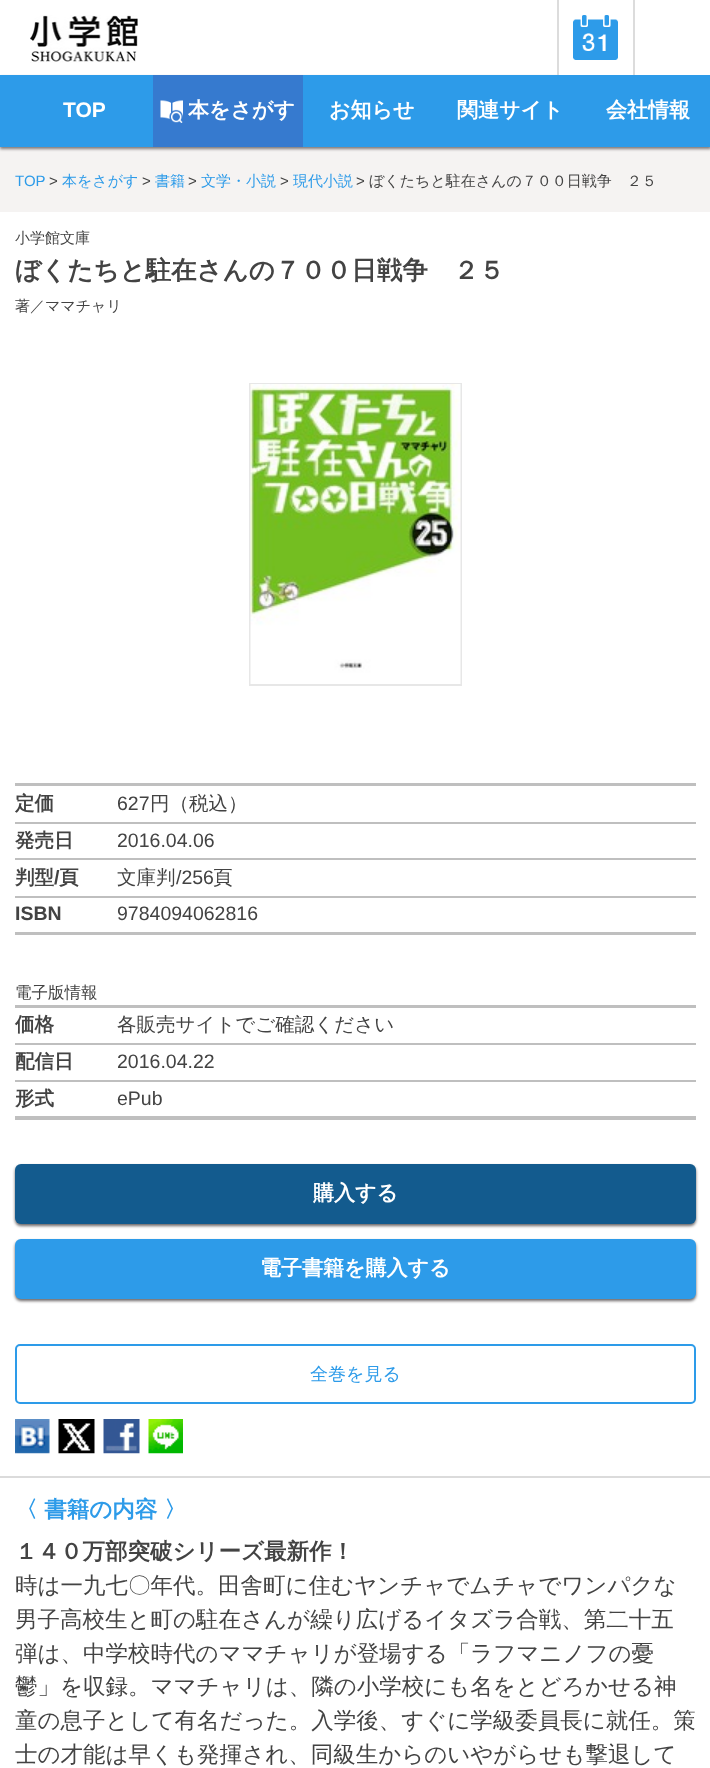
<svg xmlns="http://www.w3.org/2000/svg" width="710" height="1768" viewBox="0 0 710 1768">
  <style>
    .t1 { font: bold 21px Liberation Sans; fill: #fff; }
    .t2 { font: bold 21px WenQuanYi Zen Hei; fill: #fff; }
    .t3 { font: 15px Liberation Sans; fill: #2d9be9; }
    .t4 { font: 15px Liberation Sans; fill: #434343; }
    .t5 { font: 500 15px WenQuanYi Zen Hei; fill: #2d9be9; }
    .t6 { font: 500 15px WenQuanYi Zen Hei; fill: #434343; }
    .t7 { font: bold 25.5px WenQuanYi Zen Hei; fill: #434343; }
    .t8 { font: bold 19.5px WenQuanYi Zen Hei; fill: #434343; }
    .t9 { font: 19.5px Liberation Sans; fill: #434343; }
    .t10 { font: 500 19.5px WenQuanYi Zen Hei; fill: #434343; }
    .t11 { font: bold 19.5px Liberation Sans; fill: #434343; }
    .t12 { font: 500 16.5px WenQuanYi Zen Hei; fill: #434343; }
    .t13 { font: 500 18px WenQuanYi Zen Hei; fill: #2d9be9; }
    .t14 { font: bold 22.5px WenQuanYi Zen Hei; fill: #2d9be9; }
    .t15 { font: bold 22.5px WenQuanYi Zen Hei; fill: #434343; }
    .t16 { font: 500 22.5px WenQuanYi Zen Hei; fill: #434343; }
  </style>
  <rect width="100%" height="100%" fill="#f5f3f2"/>
  <rect x="0" y="0" width="557" height="75" fill="#fff"/>
  <image x="30" y="15" width="108" height="48" href="images/1.png"/>
  <rect x="0" y="77" width="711" height="72" fill="#07000280" filter="blur(1.5px)"/>
  <rect x="559" y="0" width="74" height="75" fill="#fff"/>
  <rect x="557" y="0" width="2" height="75" fill="#dcdcdc"/>
  <image x="573" y="15" width="45" height="45" href="images/2.png"/>
  <rect x="635" y="0" width="75" height="75" fill="#fff"/>
  <rect x="633" y="0" width="2" height="75" fill="#dcdcdc"/>
  <rect x="0" y="75" width="710" height="72" fill="#2d9be9"/>
  <text x="63" y="117" class="t1">TOP</text>
  <rect x="153" y="75" width="150" height="72" fill="#367acf"/>
  <image x="160" y="100" width="23" height="23" href="images/3.png"/>
  <text x="188" y="117" class="t2">本をさがす</text>
  <text x="329" y="117" class="t2">お知らせ</text>
  <text x="457" y="117" class="t2">関連サイト</text>
  <text x="606" y="117" class="t2">会社情報</text>
  <text x="15" y="186" class="t3">TOP</text>
  <text x="49" y="186" class="t4">&gt;</text>
  <text x="62" y="186" class="t5">本をさがす</text>
  <text x="142" y="186" class="t4">&gt;</text>
  <text x="155" y="186" class="t5">書籍</text>
  <text x="188" y="186" class="t4">&gt;</text>
  <text x="201" y="186" class="t5">文学・小説</text>
  <text x="280" y="186" class="t4">&gt;</text>
  <text x="293" y="186" class="t5">現代小説</text>
  <text x="356" y="186" class="t4">&gt;</text>
  <text x="369" y="186" class="t6">ぼくたちと駐在さんの７００日戦争　２５</text>
  <rect x="0" y="212" width="710" height="1556" fill="#fff"/>
  <text x="15" y="243" class="t6">小学館文庫</text>
  <text x="15" y="279" class="t7">ぼくたちと駐在さんの７００日戦争　２５</text>
  <text x="15" y="311" class="t6">著／ママチャリ</text>
  <rect x="0" y="1476" width="710" height="2" fill="#dbdbdb"/>
  <rect x="250" y="384" width="211" height="301" fill="none" stroke="#e7e7e7" stroke-width="2"/>
  <image x="250" y="384" width="211" height="300" href="images/4.png"/>
  <rect x="15" y="783" width="681" height="3" fill="#bfbfbf"/>
  <rect x="15" y="932" width="681" height="3" fill="#bfbfbf"/>
  <rect x="15" y="822" width="681" height="2" fill="#bfbfbf"/>
  <text x="15" y="810" class="t8">定価</text>
  <text x="117" y="810" class="t9">627</text>
  <text x="150" y="810" class="t10">円（税込）</text>
  <rect x="15" y="858" width="681" height="2" fill="#bfbfbf"/>
  <text x="15" y="847" class="t8">発売日</text>
  <text x="117" y="847" class="t9">2016.04.06</text>
  <rect x="15" y="896" width="681" height="2" fill="#bfbfbf"/>
  <text x="15" y="884" class="t8">判型</text>
  <text x="54" y="884" class="t11">/</text>
  <text x="59" y="884" class="t8">頁</text>
  <text x="117" y="884" class="t10">文庫判</text>
  <text x="176" y="884" class="t9">/256</text>
  <text x="213" y="884" class="t10">頁</text>
  <text x="15" y="920" class="t11">ISBN</text>
  <text x="117" y="920" class="t9">9784094062816</text>
  <text x="15" y="998" class="t12">電子版情報</text>
  <rect x="15" y="1005" width="681" height="3" fill="#bfbfbf"/>
  <rect x="15" y="1116" width="681" height="4" fill="#bfbfbf"/>
  <rect x="15" y="1043" width="681" height="2" fill="#bfbfbf"/>
  <text x="15" y="1031" class="t8">価格</text>
  <text x="117" y="1031" class="t10">各販売サイトでご確認ください</text>
  <rect x="15" y="1080" width="681" height="2" fill="#bfbfbf"/>
  <text x="15" y="1068" class="t8">配信日</text>
  <text x="117" y="1068" class="t9">2016.04.22</text>
  <text x="15" y="1105" class="t8">形式</text>
  <text x="117" y="1105" class="t9">ePub</text>
  <rect x="15" y="1166" width="681" height="60" rx="6" fill="#07000299" filter="blur(1.5px)"/>
  <rect x="15" y="1164" width="681" height="60" rx="6" fill="#135b8e"/>
  <text x="313" y="1200" class="t2">購入する</text>
  <rect x="15" y="1241" width="681" height="60" rx="6" fill="#07000299" filter="blur(1.5px)"/>
  <rect x="15" y="1239" width="681" height="60" rx="6" fill="#2d9be9"/>
  <text x="260" y="1275" class="t2">電子書籍を購入する</text>
  <rect x="16" y="1345" width="679" height="58" rx="4" fill="none" stroke="#2d9be9" stroke-width="2"/>
  <text x="310" y="1380" class="t13">全巻を見る</text>
  <image x="15" y="1419" width="35" height="35" href="images/5.png"/>
  <image x="58" y="1419" width="37" height="35" href="images/6.png"/>
  <image x="103" y="1419" width="37" height="35" href="images/7.png"/>
  <image x="148" y="1419" width="35" height="35" href="images/8.png"/>
  <text x="15" y="1517" class="t14">〈 書籍の内容 〉</text>
  <text x="15" y="1559" class="t15">１４０万部突破シリーズ最新作！</text>
  <text x="15" y="1593" class="t16">時は一九七〇年代。田舎町に住むヤンチャでムチャでワンパクな</text>
  <text x="15" y="1627" class="t16">男子高校生と町の駐在さんが繰り広げるイタズラ合戦、第二十五</text>
  <text x="15" y="1661" class="t16">弾は、中学校時代のママチャリが登場する「ラフマニノフの憂</text>
  <text x="15" y="1694" class="t16">鬱」を収録。ママチャリは、隣の小学校にも名をとどろかせる神</text>
  <text x="15" y="1728" class="t16">童の息子として有名だった。入学後、すぐに学級委員長に就任。策</text>
  <text x="15" y="1762" class="t16">士の才能は早くも発揮され、同級生からのいやがらせも撃退して</text>
</svg>
